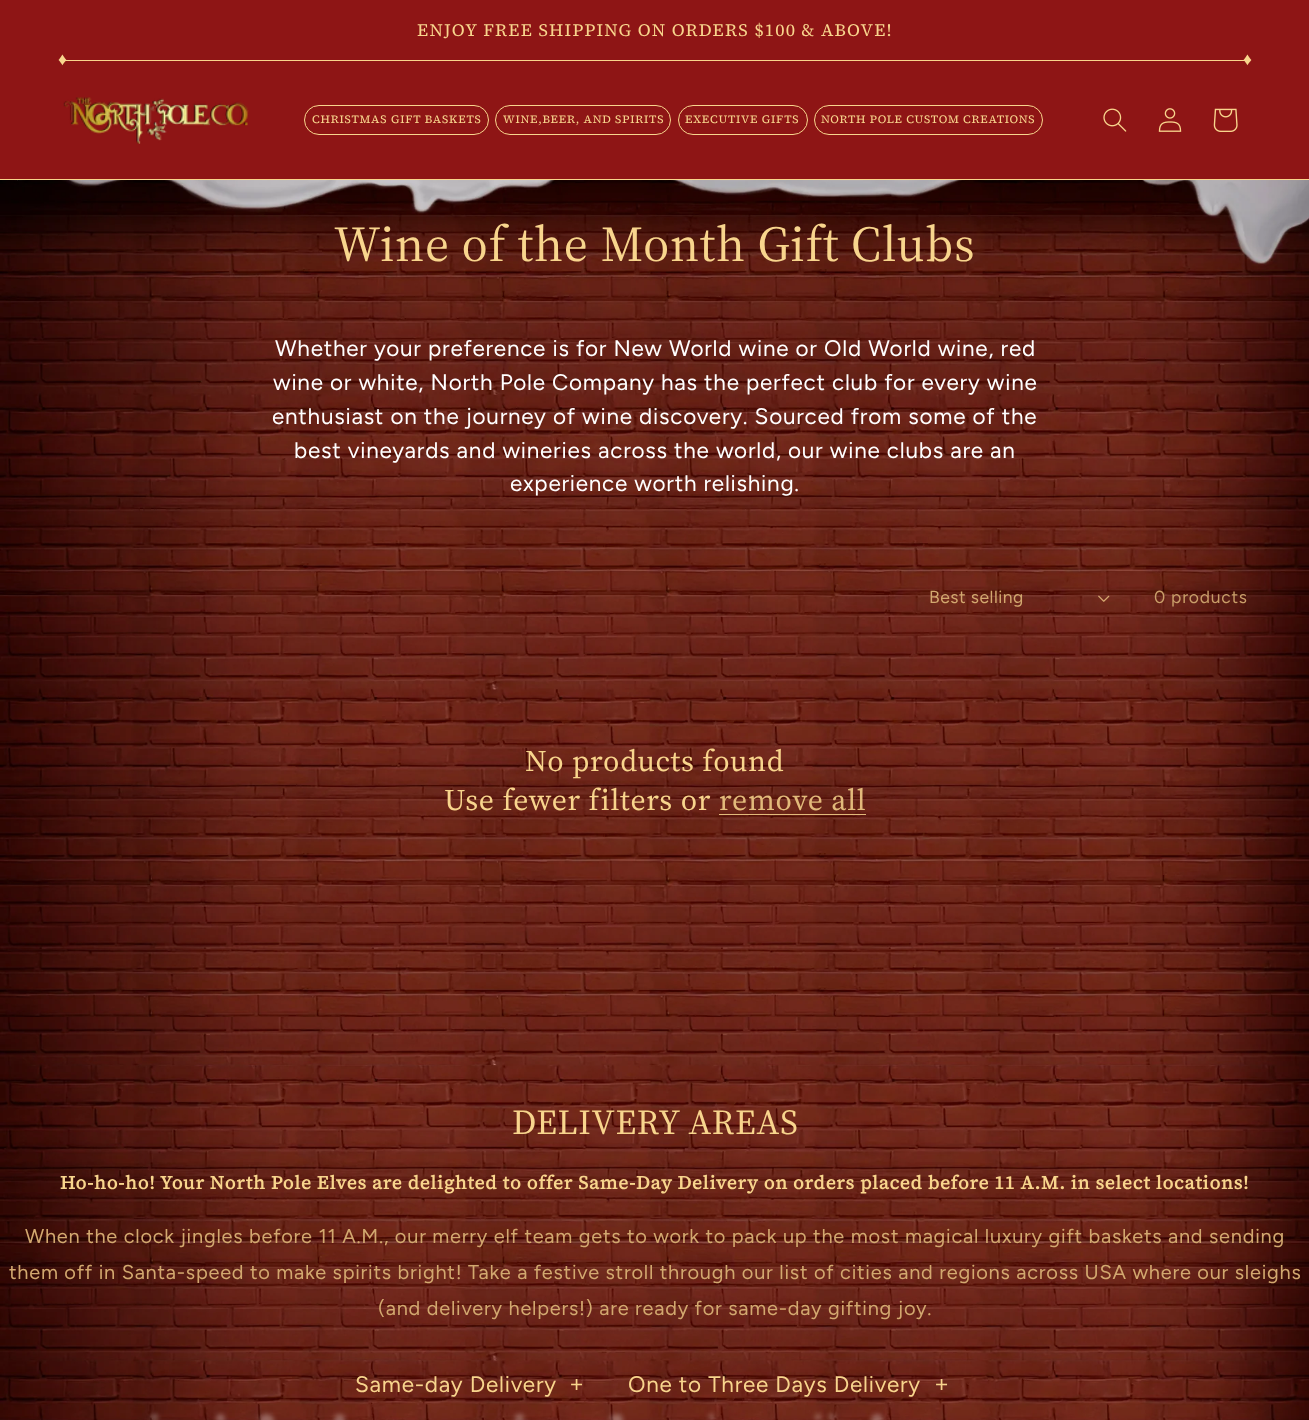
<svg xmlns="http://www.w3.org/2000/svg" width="1309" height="1420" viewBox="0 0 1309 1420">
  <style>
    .t1 { font: 17.5px 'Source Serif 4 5'; letter-spacing: 1.25px; fill: #f8d58d; }
    .t2 { font: 17.5px Liberation Sans; letter-spacing: 0.75px; fill: #f8d58d; }
    .t3 { font: 11.25px 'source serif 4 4'; letter-spacing: 0.75px; fill: #f8d58d; }
    .t4 { font: 50px 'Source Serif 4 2'; letter-spacing: 0.75px; fill: #f8d58d; }
    .t5 { font: 22.5px Figtree; letter-spacing: 0.75px; fill: #fff; }
    .t6 { font: 17.5px Figtree; letter-spacing: 0.5px; fill: #d2a86f; }
    .t7 { font: 17.5px Figtree; letter-spacing: 0.75px; fill: #c99e69; }
    .t8 { font: 30px 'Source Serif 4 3'; letter-spacing: 0.75px; fill: #f8d58d; }
    .t9 { font: 30px 'Source Serif 4 3'; letter-spacing: 0.75px; fill: #e2ba7b; }
    .t10 { font: 35px 'Source Serif 4'; letter-spacing: 0.75px; fill: #f8d58d; }
    .t11 { font: bold 18.75px 'Source Serif 4'; letter-spacing: 0.75px; fill: #f8d58d; }
    .t12 { font: 20px Figtree; letter-spacing: 0.75px; fill: #d2a86f; }
    .t13 { font: 22.5px Figtree; letter-spacing: 0.75px; fill: #f8d58d; }
    .t14 { font: 22.5px Liberation Sans; fill: #f8d58d; }
  </style>
  <rect width="100%" height="100%" fill="#8e1515"/>
  <rect x="63" y="60" width="1185" height="1" fill="#f8d58d"/>
  <text x="417" y="36" class="t1">ENJOY FREE SHIPPING ON ORDERS $100 &amp; ABOVE!</text>
  <text x="58" y="65" class="t2">♦</text>
  <text x="1243" y="65" class="t2">♦</text>
  <rect x="0" y="179" width="1309" height="1" fill="#f8d58d"/>
  <image x="63" y="97" width="186" height="47" href="images/1.png"/>
  <rect x="304.5" y="105.5" width="184" height="29" rx="14.5" fill="none" stroke="#f8d58d"/>
  <text x="312" y="123" class="t3">CHRISTMAS GIFT BASKETS</text>
  <rect x="495.5" y="105.5" width="175" height="29" rx="14.5" fill="none" stroke="#f8d58d"/>
  <text x="503" y="123" class="t3">WINE,BEER, AND SPIRITS</text>
  <rect x="678.5" y="105.5" width="129" height="29" rx="14.5" fill="none" stroke="#f8d58d"/>
  <text x="685" y="123" class="t3">EXECUTIVE GIFTS</text>
  <rect x="814.5" y="105.5" width="228" height="29" rx="14.5" fill="none" stroke="#f8d58d"/>
  <text x="821" y="123" class="t3">NORTH POLE CUSTOM CREATIONS</text>
  <image x="1103" y="108" width="24" height="24" href="images/2.png"/>
  <image x="1158" y="108" width="24" height="24" href="images/3.png"/>
  <image x="1213" y="108" width="25" height="24" href="images/4.png"/>
  <image x="0" y="948" width="1309" height="472" href="images/5.png"/>
  <image x="0" y="180" width="1309" height="769" href="images/6.png"/>
  <text x="334" y="261" class="t4">Wine of the Month Gift Clubs</text>
  <text x="275" y="356" class="t5">Whether your preference is for New World wine or Old World wine, red</text>
  <text x="273" y="390" class="t5">wine or white, North Pole Company has the perfect club for every wine</text>
  <text x="272" y="424" class="t5">enthusiast on the journey of wine discovery. Sourced from some of the</text>
  <text x="294" y="458" class="t5">best vineyards and wineries across the world, our wine clubs are an</text>
  <text x="510" y="491" class="t5">experience worth relishing.</text>
  <text x="929" y="603" class="t6">Best selling</text>
  <image x="1098" y="595" width="12" height="7" href="images/7.png"/>
  <text x="1154" y="603" class="t7">0 products</text>
  <text x="525" y="771" class="t8">No products found</text>
  <text x="444" y="810" class="t8">Use fewer filters or</text>
  <text x="719" y="810" class="t9">remove all</text>
  <rect x="719" y="814" width="147" height="1" fill="#f8d58dd9"/>
  <text x="512" y="1134" class="t10">DELIVERY AREAS</text>
  <text x="60" y="1189" class="t11">Ho-ho-ho! Your North Pole Elves are delighted to offer Same-Day Delivery on orders placed before 11 A.M. in select locations!</text>
  <text x="25" y="1243" class="t12">When the clock jingles before 11 A.M., our merry elf team gets to work to pack up the most magical luxury gift baskets and sending</text>
  <text x="9" y="1279" class="t12">them off in Santa-speed to make spirits bright! Take a festive stroll through our list of cities and regions across USA where our sleighs</text>
  <text x="378" y="1315" class="t12">(and delivery helpers!) are ready for same-day gifting joy.</text>
  <text x="355" y="1392" class="t13">Same-day Delivery</text>
  <text x="570" y="1392" class="t14">+</text>
  <text x="628" y="1392" class="t13">One to Three Days Delivery</text>
  <text x="935" y="1392" class="t14">+</text>
  <rect x="151" y="1414" width="7" height="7" rx="3.5" fill="#ffffff4d" filter="blur(2.5px)"/>
  <rect x="216" y="1414" width="9" height="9" rx="4.5" fill="#ffffff4d" filter="blur(2.5px)"/>
  <rect x="259" y="1414" width="15" height="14" rx="7" fill="#ffffff4d" filter="blur(2.5px)"/>
  <rect x="334" y="1414" width="11" height="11" rx="5.5" fill="#ffffff4d" filter="blur(2.5px)"/>
  <rect x="515" y="1414" width="9" height="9" rx="4.5" fill="#ffffff4d" filter="blur(2.5px)"/>
  <rect x="610" y="1414" width="13" height="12" rx="6" fill="#ffffff4d" filter="blur(2.5px)"/>
  <rect x="709" y="1414" width="5" height="6" rx="2.5" fill="#ffffff4d" filter="blur(2.5px)"/>
  <rect x="815" y="1414" width="6" height="6" rx="3" fill="#ffffff4d" filter="blur(2.5px)"/>
  <rect x="829" y="1414" width="6" height="6" rx="3" fill="#ffffff4d" filter="blur(2.5px)"/>
  <rect x="871" y="1414" width="12" height="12" rx="6" fill="#ffffff4d" filter="blur(2.5px)"/>
</svg>
